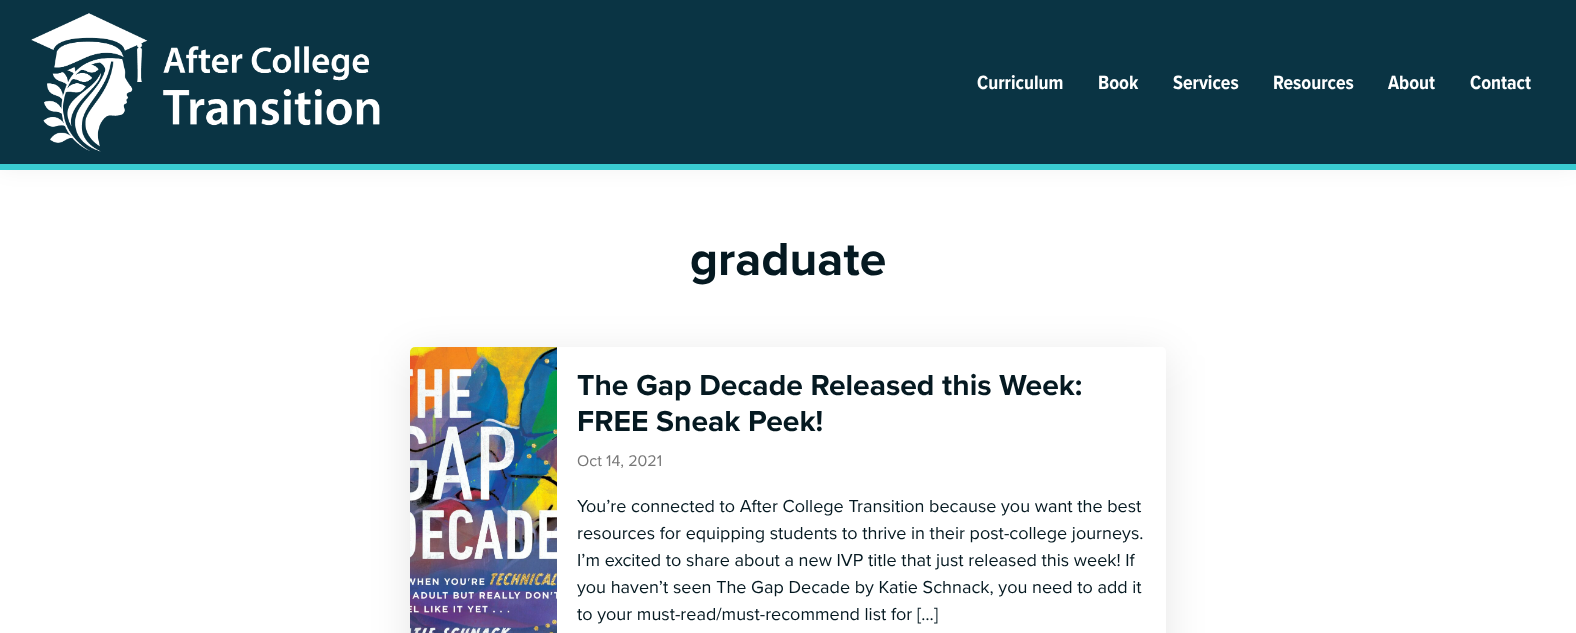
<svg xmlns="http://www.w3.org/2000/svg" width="1576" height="633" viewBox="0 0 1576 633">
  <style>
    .t1 { font: bold 20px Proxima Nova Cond; fill: #fff; }
    .t2 { font: bold 48px Proxima Nova; fill: #051921; }
    .t3 { font: bold 30px Proxima Nova; fill: #051921; }
    .t4 { font: 16px Proxima Nova; fill: #777; }
    .t5 { font: 18px Proxima Nova; fill: #051921; }
  </style>
  <defs>
    <clipPath id="clip1"><path d="M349 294H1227V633H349ZM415 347H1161C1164 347 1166 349 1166 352V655C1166 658 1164 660 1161 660H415C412 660 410 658 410 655V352C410 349 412 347 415 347Z" clip-rule="evenodd"/></clipPath>
  </defs>
  <rect width="100%" height="100%" fill="#fff"/>
  <rect x="0" y="0" width="1576" height="170" fill="#0000000d" filter="blur(10px)"/>
  <rect x="0" y="0" width="1576" height="164" fill="#0a3444"/>
  <rect x="0" y="164" width="1576" height="6" fill="#39cbd1"/>
  <image x="31" y="13" width="349" height="139" href="images/1.png"/>
  <text x="977" y="89" class="t1">Curriculum</text>
  <text x="1098" y="89" class="t1">Book</text>
  <text x="1173" y="89" class="t1">Services</text>
  <text x="1273" y="89" class="t1">Resources</text>
  <text x="1388" y="89" class="t1">About</text>
  <text x="1470" y="89" class="t1">Contact</text>
  <text x="690" y="275" class="t2">graduate</text>
  <g clip-path="url(#clip1)">
    <rect x="410" y="355" width="756" height="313" rx="5" fill="#0000001a" filter="blur(20px)"/>
  </g>
  <image x="410" y="347" width="147" height="286" href="images/2.png"/>
  <text x="577" y="395" class="t3">The Gap Decade Released this Week:</text>
  <text x="577" y="431" class="t3">FREE Sneak Peek!</text>
  <text x="577" y="466" class="t4">Oct 14, 2021</text>
  <text x="577" y="512" class="t5">You’re connected to After College Transition because you want the best</text>
  <text x="577" y="539" class="t5">resources for equipping students to thrive in their post-college journeys.</text>
  <text x="577" y="566" class="t5">I’m excited to share about a new IVP title that just released this week! If</text>
  <text x="577" y="593" class="t5">you haven’t seen The Gap Decade by Katie Schnack, you need to add it</text>
  <text x="577" y="620" class="t5">to your must-read/must-recommend list for […]</text>
</svg>
